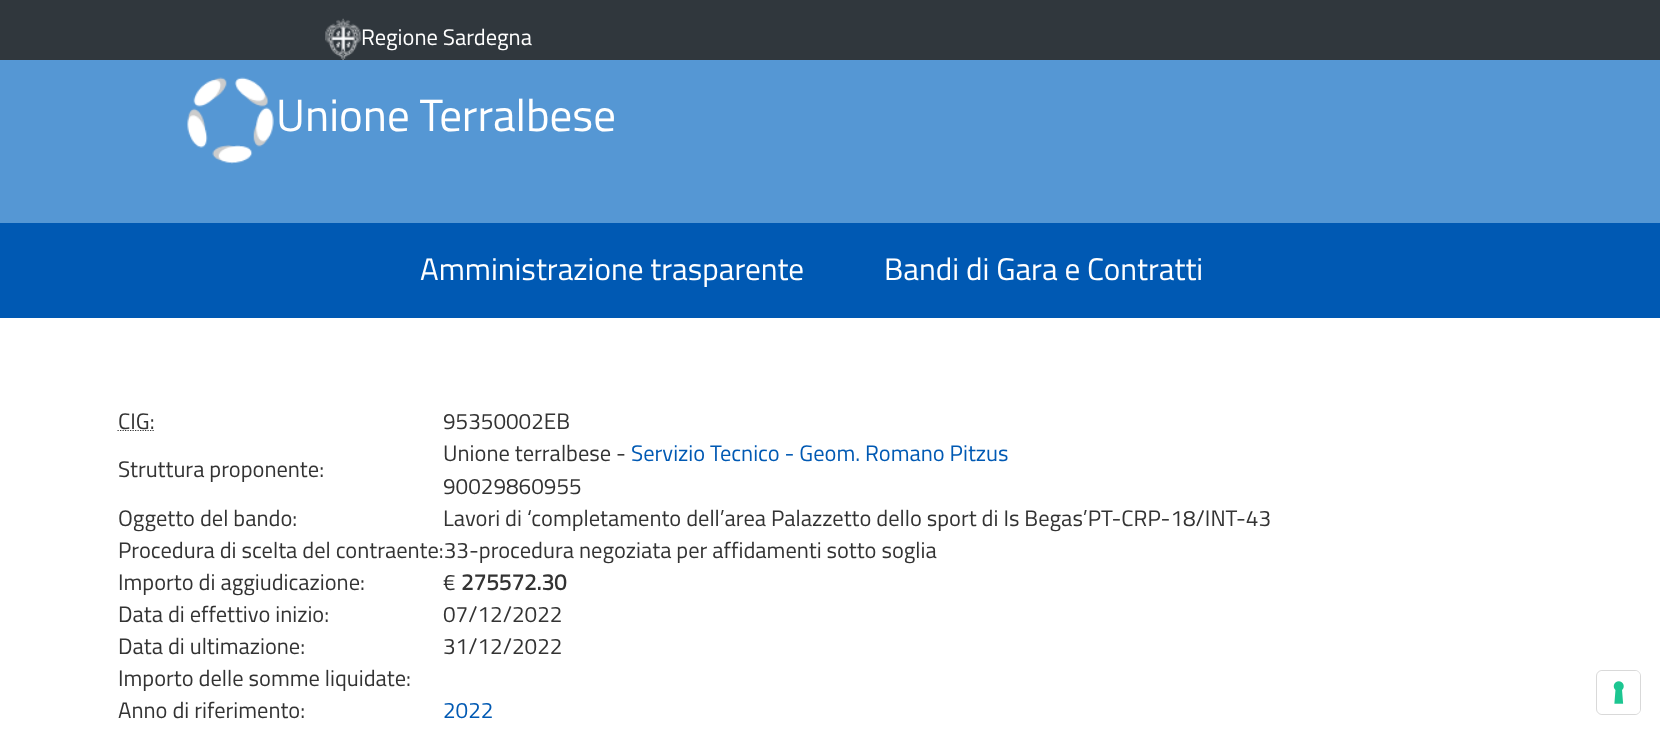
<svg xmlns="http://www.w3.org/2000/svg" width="1660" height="733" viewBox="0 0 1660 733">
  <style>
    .t1 { font: 22.5px Titillium Web; fill: #fff; }
    .t2 { font: 45px Titillium Web; fill: #fff; }
    .t3 { font: 31.25px Titillium Web; fill: #fff; }
    .t4 { font: 22.5px Titillium Web; fill: #333; }
    .t5 { font: 22.5px Titillium Web; fill: #0059b3; }
    .t6 { font: bold 22.5px Titillium Web; fill: #333; }
  </style>
  <rect width="100%" height="100%" fill="#fff"/>
  <rect x="0" y="60" width="1660" height="163" fill="#5597d4"/>
  <rect x="0" y="0" width="1660" height="60" fill="#30373d"/>
  <image x="325" y="18" width="37" height="42" href="images/1.png"/>
  <text x="361" y="45" class="t1">Regione Sardegna</text>
  <image x="187" y="77" width="87" height="87" href="images/2.png"/>
  <text x="276" y="131" class="t2">Unione Terralbese</text>
  <rect x="0" y="223" width="1660" height="95" fill="#0059b3"/>
  <text x="420" y="280" class="t3">Amministrazione trasparente</text>
  <text x="884" y="280" class="t3">Bandi di Gara e Contratti</text>
  <path d="M117.5 430.5H154" fill="none" stroke="#333" stroke-width="1.2" stroke-dasharray="1.25 1.25"/>
  <text x="118" y="429" class="t4">CIG:</text>
  <text x="443" y="429" class="t4">95350002EB</text>
  <text x="118" y="477" class="t4">Struttura proponente:</text>
  <text x="443" y="461" class="t4">Unione terralbese -</text>
  <text x="631" y="461" class="t5">Servizio Tecnico - Geom. Romano Pitzus</text>
  <text x="443" y="494" class="t4">90029860955</text>
  <text x="118" y="526" class="t4">Oggetto del bando:</text>
  <text x="443" y="526" class="t4">Lavori di ‘completamento dell’area Palazzetto dello sport di Is Begas’PT-CRP-18/INT-43</text>
  <text x="118" y="558" class="t4">Procedura di scelta del contraente:33-procedura negoziata per affidamenti sotto soglia</text>
  <text x="118" y="590" class="t4">Importo di aggiudicazione:</text>
  <text x="443" y="590" class="t4">€</text>
  <text x="461" y="590" class="t6">275572.30</text>
  <text x="118" y="622" class="t4">Data di effettivo inizio:</text>
  <text x="443" y="622" class="t4">07/12/2022</text>
  <text x="118" y="654" class="t4">Data di ultimazione:</text>
  <text x="443" y="654" class="t4">31/12/2022</text>
  <text x="118" y="686" class="t4">Importo delle somme liquidate:</text>
  <text x="118" y="718" class="t4">Anno di riferimento:</text>
  <text x="443" y="718" class="t5">2022</text>
  <rect x="1596.5" y="670.5" width="44" height="44" rx="5.5" fill="none" stroke="#d9d9d9"/>
  <rect x="1598" y="671" width="42" height="43" rx="5" fill="#fff"/>
  <image x="1613" y="681" width="11" height="23" href="images/3.png"/>
</svg>
